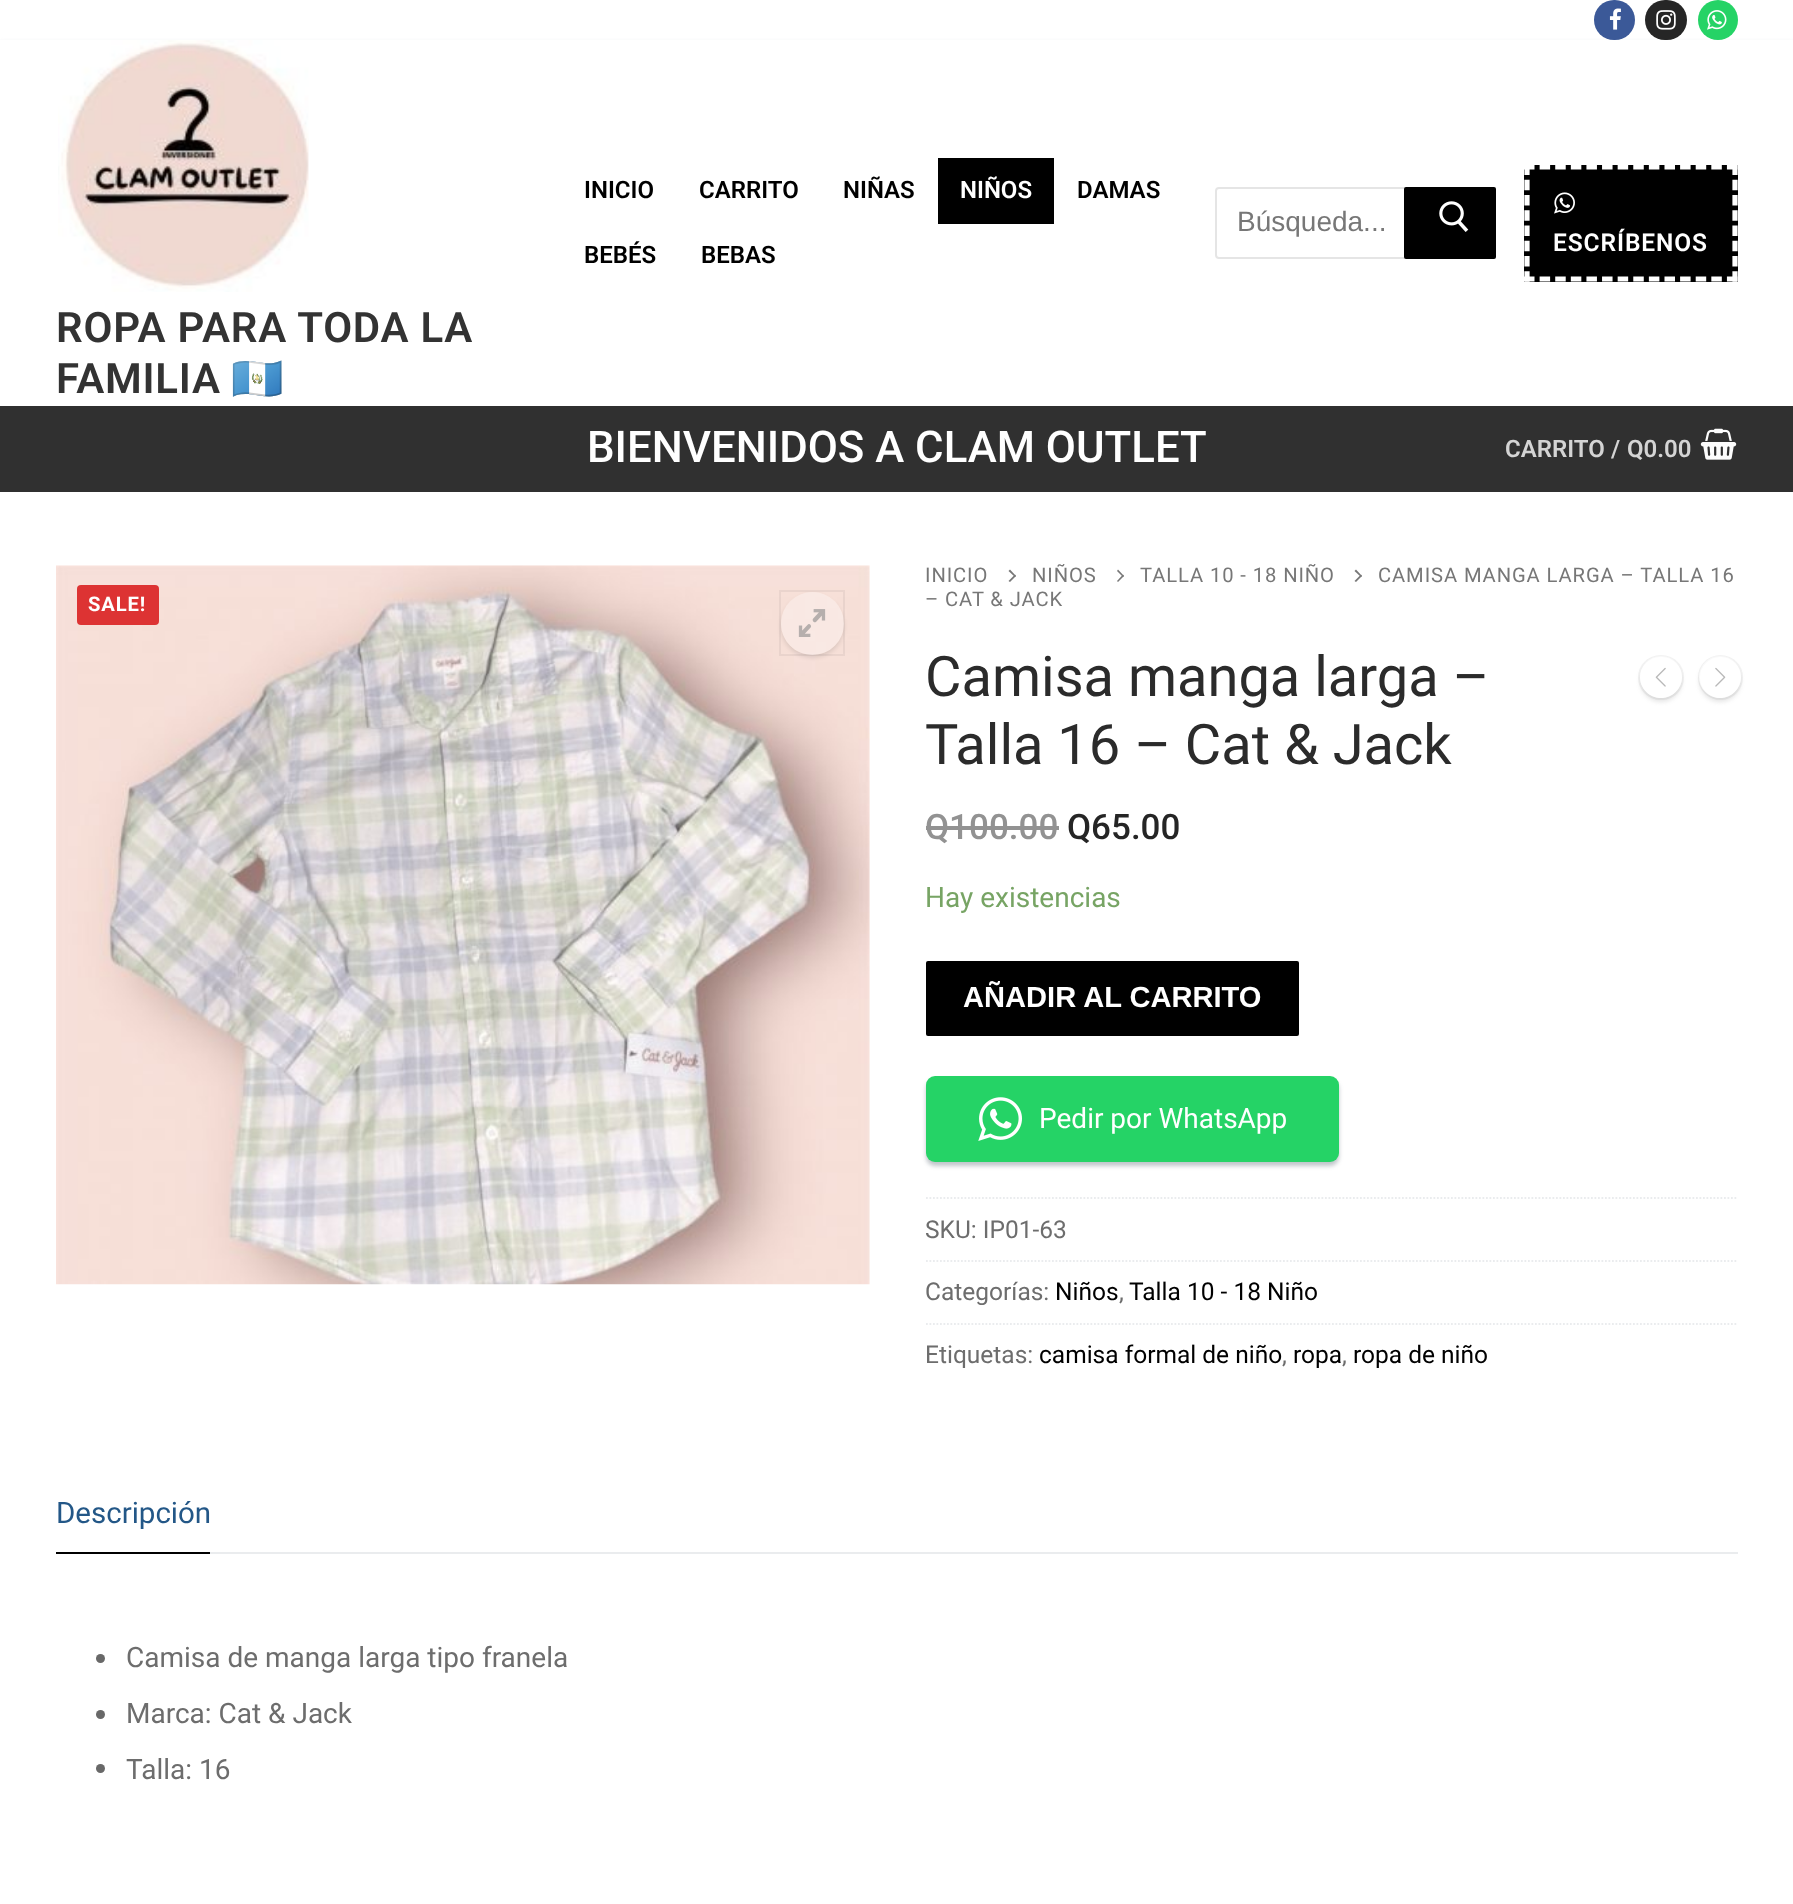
<svg xmlns="http://www.w3.org/2000/svg" width="1793" height="1904" viewBox="0 0 1793 1904">
  <style>
    .t1 { font: 600 24px Roboto; fill: #000; }
    .t2 { font: 600 24px Roboto; fill: #fff; }
    .t3 { font: 600 42px Roboto; letter-spacing: 0.75px; fill: #333; }
    .t4 { font: bold 42px Noto Color Emoji; letter-spacing: 0.75px; fill: #333; }
    .t5 { font: 28px Liberation Sans; fill: #777; }
    .t6 { font: 600 24.5px Roboto; letter-spacing: 0.9px; fill: #fff; }
    .t7 { font: 500 43.75px Roboto; fill: #fff; }
    .t8 { font: 600 24px Roboto; fill: #d4d4d4; }
    .t9 { font: bold 20.2px Roboto; letter-spacing: 0.9px; fill: #fff; }
    .t10 { font: 20.2px Roboto; letter-spacing: 0.9px; fill: #777; }
    .t11 { font: 56px Roboto; fill: #2b2b2b; }
    .t12 { font: 500 35px Roboto; fill: #929292; }
    .t13 { font: 500 35px Roboto; fill: #252525; }
    .t14 { font: 28px Roboto; fill: #77a464; }
    .t15 { font: bold 29.1px Liberation Sans; fill: #fff; }
    .t16 { font: 28px Roboto; fill: #fff; }
    .t17 { font: 24.5px Roboto; fill: #6d6d6d; }
    .t18 { font: 24.5px Roboto; fill: #000; }
    .t19 { font: 29.5px Roboto; fill: #235787; }
    .t20 { font: 28px Roboto; fill: #6d6d6d; }
  </style>
  <defs>
    <clipPath id="clip1"><path d="M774 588H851V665H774ZM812.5 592C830 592 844 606 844 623.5C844 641 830 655 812.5 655C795 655 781 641 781 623.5C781 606 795 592 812.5 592Z" clip-rule="evenodd"/></clipPath>
    <clipPath id="clip2"><path d="M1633 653H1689V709H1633ZM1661 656C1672.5 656 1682 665.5 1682 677C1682 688.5 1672.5 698 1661 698C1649.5 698 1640 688.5 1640 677C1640 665.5 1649.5 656 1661 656Z" clip-rule="evenodd"/></clipPath>
    <clipPath id="clip3"><path d="M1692 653H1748V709H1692ZM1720 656C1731.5 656 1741 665.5 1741 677C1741 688.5 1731.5 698 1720 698C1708.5 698 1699 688.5 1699 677C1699 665.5 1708.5 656 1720 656Z" clip-rule="evenodd"/></clipPath>
  </defs>
  <rect width="100%" height="100%" fill="#fff"/>
  <rect x="0" y="42" width="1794" height="366" fill="#e1e5ea" filter="blur(2px)"/>
  <rect x="1594" y="0" width="41" height="40" rx="20" fill="#3b5998"/>
  <image x="1609" y="8" width="12" height="22" href="images/1.png"/>
  <rect x="1645" y="0" width="42" height="40" rx="20" fill="#262626"/>
  <image x="1656" y="10" width="20" height="20" href="images/2.png"/>
  <circle cx="1718" cy="20" r="20" fill="#25d366"/>
  <image x="1707" y="10" width="20" height="20" href="images/3.png"/>
  <rect x="0" y="40" width="1793" height="366" fill="#fff"/>
  <text x="584" y="198" class="t1">INICIO</text>
  <text x="699" y="198" class="t1">CARRITO</text>
  <text x="843" y="198" class="t1">NIÑAS</text>
  <rect x="938" y="158" width="116" height="66" fill="#000"/>
  <text x="960" y="198" class="t2">NIÑOS</text>
  <text x="1077" y="198" class="t1">DAMAS</text>
  <text x="584" y="263" class="t1">BEBÉS</text>
  <text x="701" y="263" class="t1">BEBAS</text>
  <image x="58" y="40" width="251" height="252" href="images/4.png"/>
  <text x="56" y="342" class="t3">ROPA PARA TODA LA</text>
  <text x="56" y="393" class="t3">FAMILIA</text>
  <text x="231" y="393" class="t4">🇬🇹</text>
  <rect x="1216" y="188" width="257" height="70" rx="3" fill="none" stroke="#e5e5e5" stroke-width="2"/>
  <text x="1237" y="231" class="t5">Búsqueda...</text>
  <rect x="1404" y="187" width="92" height="72" rx="2" fill="#000"/>
  <image x="1439" y="201" width="30" height="31" href="images/5.png"/>
  <rect x="1524" y="165" width="214" height="117" fill="#000"/>
  <path d="M1524 167H1738" fill="none" stroke="#fff" stroke-width="5.2" stroke-dasharray="10.5 5.11"/>
  <path d="M1735 164.5V282" fill="none" stroke="#fff" stroke-width="5.2" stroke-dasharray="10.5 4.74"/>
  <path d="M1524 279H1738" fill="none" stroke="#fff" stroke-width="5.2" stroke-dasharray="10.5 5.11"/>
  <path d="M1527 164.5V282" fill="none" stroke="#fff" stroke-width="5.2" stroke-dasharray="10.5 4.74"/>
  <image x="1554" y="192" width="21" height="22" href="images/6.png"/>
  <text x="1553" y="251" class="t6">ESCRÍBENOS</text>
  <rect x="0" y="406" width="1793" height="86" fill="#303030"/>
  <text x="587" y="462" class="t7">BIENVENIDOS A CLAM OUTLET</text>
  <text x="1505" y="457" class="t8">CARRITO</text>
  <text x="1611" y="457" class="t8">/</text>
  <text x="1627" y="457" class="t8">Q0.00</text>
  <image x="1700" y="428" width="37" height="32" href="images/7.png"/>
  <image x="56" y="565" width="814" height="720" href="images/8.png"/>
  <rect x="77" y="585" width="82" height="40" rx="4" fill="#d33"/>
  <text x="88" y="611" class="t9">SALE!</text>
  <rect x="780" y="591" width="64" height="64" fill="none" stroke="#0000000d" stroke-width="2"/>
  <g clip-path="url(#clip1)">
    <rect x="781" y="595" width="63" height="63" rx="31.5" fill="#0000001a" filter="blur(2px)"/>
  </g>
  <circle cx="812.5" cy="623.5" r="31.5" fill="#ffffff4d"/>
  <image x="798" y="609" width="28" height="28" href="images/9.png"/>
  <text x="925" y="582" class="t10">INICIO</text>
  <path d="M1016 576L1010 582L1008.5 581L1015 574.5Z" fill="#777"/>
  <path d="M1016 576L1015 577L1008.5 571L1010 569.5Z" fill="#777"/>
  <text x="1032" y="582" class="t10">NIÑOS</text>
  <path d="M1124 576L1118 582L1117 581L1123 574.5Z" fill="#777"/>
  <path d="M1124 576L1123 577L1117 571L1118 569.5Z" fill="#777"/>
  <text x="1140" y="582" class="t10">TALLA 10 - 18 NIÑO</text>
  <path d="M1362 576L1356 582L1354.5 581L1361 574.5Z" fill="#777"/>
  <path d="M1362 576L1361 577L1354.5 571L1356 569.5Z" fill="#777"/>
  <text x="1378" y="582" class="t10">CAMISA MANGA LARGA – TALLA 16</text>
  <text x="925" y="606" class="t10">– CAT &amp; JACK</text>
  <text x="925" y="696" class="t11">Camisa manga larga –</text>
  <text x="925" y="764" class="t11">Talla 16 – Cat &amp; Jack</text>
  <rect x="1639" y="656" width="44" height="43" rx="21.5" fill="none" stroke="#f3f3f3" stroke-width="2"/>
  <g clip-path="url(#clip2)">
    <rect x="1640" y="660" width="42" height="42" rx="21" fill="#66666629" filter="blur(2px)"/>
  </g>
  <circle cx="1661" cy="677" r="21" fill="#ffffff80"/>
  <image x="1655" y="667" width="11" height="20" href="images/10.png"/>
  <circle cx="1720.5" cy="677.5" r="21.5" fill="none" stroke="#f3f3f3" stroke-width="2"/>
  <g clip-path="url(#clip3)">
    <rect x="1699" y="660" width="42" height="42" rx="21" fill="#66666629" filter="blur(2px)"/>
  </g>
  <circle cx="1720" cy="677" r="21" fill="#ffffff80"/>
  <image x="1715" y="667" width="11" height="20" href="images/11.png"/>
  <text x="925" y="839" class="t12">Q100.00</text>
  <rect x="926" y="826" width="133" height="4" fill="#929292"/>
  <text x="1067" y="839" class="t13">Q65.00</text>
  <text x="925" y="907" class="t14">Hay existencias</text>
  <rect x="926" y="961" width="373" height="75" rx="2" fill="#000"/>
  <text x="963" y="1007" class="t15">AÑADIR AL CARRITO</text>
  <rect x="926" y="1080" width="413" height="86" rx="9" fill="#2d3e4f4d" filter="blur(2px)"/>
  <rect x="926" y="1076" width="413" height="86" rx="9" fill="#25d366"/>
  <image x="978" y="1097" width="44" height="44" href="images/12.png"/>
  <text x="1039" y="1128" class="t16">Pedir por WhatsApp</text>
  <path d="M926 1198H1738" fill="none" stroke="#eaecee" stroke-width="1.8" stroke-dasharray="1.75 1.75"/>
  <text x="925" y="1238" class="t17">SKU: IP01-63</text>
  <path d="M926 1261H1738" fill="none" stroke="#eaecee" stroke-width="1.8" stroke-dasharray="1.75 1.75"/>
  <text x="925" y="1300" class="t17">Categorías:</text>
  <text x="1055" y="1300" class="t18">Niños</text>
  <text x="1119" y="1300" class="t17">,</text>
  <text x="1129" y="1300" class="t18">Talla 10 - 18 Niño</text>
  <path d="M926 1324H1738" fill="none" stroke="#eaecee" stroke-width="1.8" stroke-dasharray="1.75 1.75"/>
  <text x="925" y="1363" class="t17">Etiquetas:</text>
  <text x="1039" y="1363" class="t18">camisa formal de niño</text>
  <text x="1282" y="1363" class="t17">,</text>
  <text x="1293" y="1363" class="t18">ropa</text>
  <text x="1342" y="1363" class="t17">,</text>
  <text x="1353" y="1363" class="t18">ropa de niño</text>
  <rect x="210" y="1552" width="1528" height="2" fill="#eaecee"/>
  <rect x="56" y="1552" width="154" height="2" fill="#000"/>
  <text x="56" y="1523" class="t19">Descripción</text>
  <circle cx="100.5" cy="1658.5" r="4.5" fill="#686868"/>
  <text x="126" y="1667" class="t20">Camisa de manga larga tipo franela</text>
  <circle cx="100.5" cy="1714.5" r="4.5" fill="#686868"/>
  <text x="126" y="1723" class="t20">Marca: Cat &amp; Jack</text>
  <circle cx="100.5" cy="1768.5" r="4.5" fill="#686868"/>
  <text x="126" y="1779" class="t20">Talla: 16</text>
</svg>
